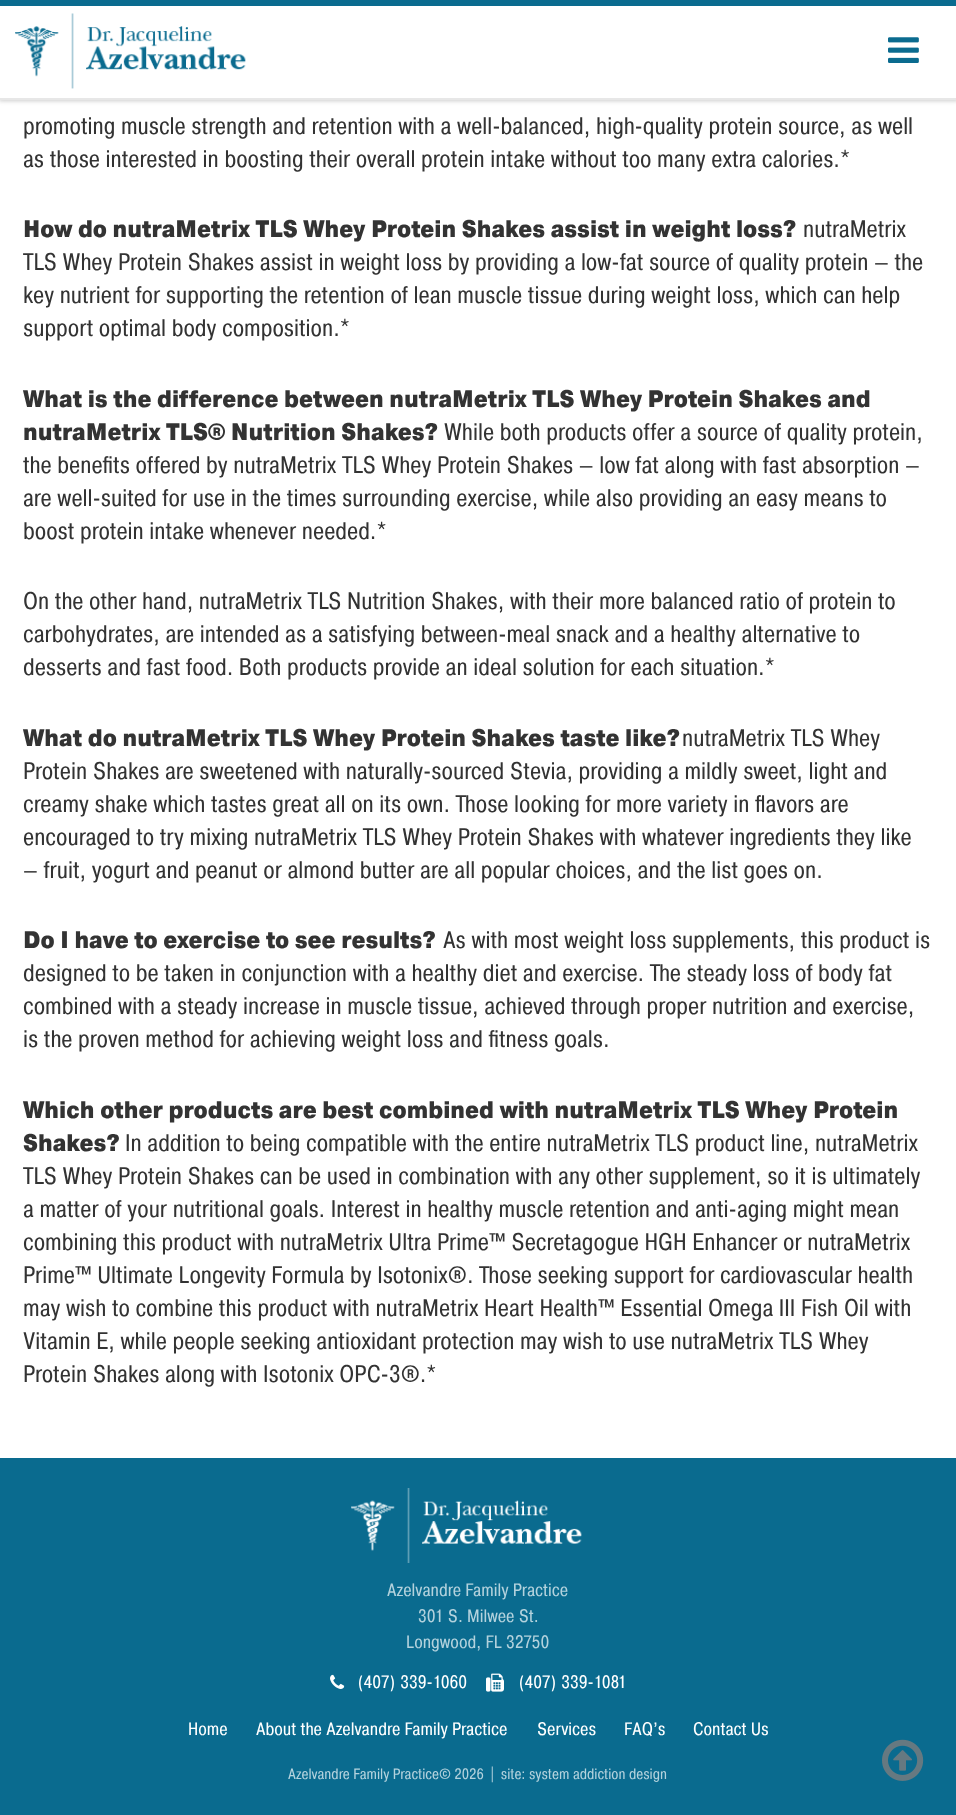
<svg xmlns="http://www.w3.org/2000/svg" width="956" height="1815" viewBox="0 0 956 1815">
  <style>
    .t1 { font: 24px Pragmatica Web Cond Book; fill: #333; }
    .t2 { font: 900 24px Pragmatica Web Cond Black; fill: #333; }
    .t3 { font: 18px Pragmatica Web Cond Book; fill: #b3d2dd; }
    .t4 { font: 18px Pragmatica Web Cond Book; fill: #fff; }
    .t5 { font: 15px Pragmatica Web Cond Book; fill: #b3d2dd; }
  </style>
  <rect width="100%" height="100%" fill="#fff"/>
  <rect x="-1" y="-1" width="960" height="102" fill="#00000033" filter="blur(2px)"/>
  <rect x="0" y="6" width="956" height="92" fill="#fff"/>
  <rect x="0" y="0" width="956" height="6" fill="#0a6b8f"/>
  <rect x="0" y="98" width="956" height="2" fill="#e7e7e7"/>
  <image x="15" y="13" width="231" height="76" href="images/1.png"/>
  <image x="888" y="37" width="31" height="26" href="images/2.png"/>
  <text x="23" y="134" class="t1">promoting muscle strength and retention with a well-balanced, high-quality protein source, as well</text>
  <text x="23" y="167" class="t1">as those interested in boosting their overall protein intake without too many extra calories.*</text>
  <text x="23" y="237" class="t2">How do nutraMetrix TLS Whey Protein Shakes assist in weight loss?</text>
  <text x="803" y="237" class="t1">nutraMetrix</text>
  <text x="23" y="270" class="t1">TLS Whey Protein Shakes assist in weight loss by providing a low-fat source of quality protein — the</text>
  <text x="23" y="303" class="t1">key nutrient for supporting the retention of lean muscle tissue during weight loss, which can help</text>
  <text x="23" y="336" class="t1">support optimal body composition.*</text>
  <text x="23" y="407" class="t2">What is the difference between nutraMetrix TLS Whey Protein Shakes and</text>
  <text x="23" y="440" class="t2">nutraMetrix TLS® Nutrition Shakes?</text>
  <text x="444" y="440" class="t1">While both products offer a source of quality protein,</text>
  <text x="23" y="473" class="t1">the benefits offered by nutraMetrix TLS Whey Protein Shakes — low fat along with fast absorption —</text>
  <text x="23" y="506" class="t1">are well-suited for use in the times surrounding exercise, while also providing an easy means to</text>
  <text x="23" y="539" class="t1">boost protein intake whenever needed.*</text>
  <text x="23" y="609" class="t1">On the other hand, nutraMetrix TLS Nutrition Shakes, with their more balanced ratio of protein to</text>
  <text x="23" y="642" class="t1">carbohydrates, are intended as a satisfying between-meal snack and a healthy alternative to</text>
  <text x="23" y="675" class="t1">desserts and fast food. Both products provide an ideal solution for each situation.*</text>
  <text x="23" y="746" class="t2">What do nutraMetrix TLS Whey Protein Shakes taste like?</text>
  <text x="682" y="746" class="t1">nutraMetrix TLS Whey</text>
  <text x="23" y="779" class="t1">Protein Shakes are sweetened with naturally-sourced Stevia, providing a mildly sweet, light and</text>
  <text x="23" y="812" class="t1">creamy shake which tastes great all on its own. Those looking for more variety in flavors are</text>
  <text x="23" y="845" class="t1">encouraged to try mixing nutraMetrix TLS Whey Protein Shakes with whatever ingredients they like</text>
  <text x="23" y="878" class="t1">— fruit, yogurt and peanut or almond butter are all popular choices, and the list goes on.</text>
  <text x="23" y="948" class="t2">Do I have to exercise to see results?</text>
  <text x="443" y="948" class="t1">As with most weight loss supplements, this product is</text>
  <text x="23" y="981" class="t1">designed to be taken in conjunction with a healthy diet and exercise. The steady loss of body fat</text>
  <text x="23" y="1014" class="t1">combined with a steady increase in muscle tissue, achieved through proper nutrition and exercise,</text>
  <text x="23" y="1047" class="t1">is the proven method for achieving weight loss and fitness goals.</text>
  <text x="23" y="1118" class="t2">Which other products are best combined with nutraMetrix TLS Whey Protein</text>
  <text x="23" y="1151" class="t2">Shakes?</text>
  <text x="125" y="1151" class="t1">In addition to being compatible with the entire nutraMetrix TLS product line, nutraMetrix</text>
  <text x="23" y="1184" class="t1">TLS Whey Protein Shakes can be used in combination with any other supplement, so it is ultimately</text>
  <text x="23" y="1217" class="t1">a matter of your nutritional goals. Interest in healthy muscle retention and anti-aging might mean</text>
  <text x="23" y="1250" class="t1">combining this product with nutraMetrix Ultra Prime™ Secretagogue HGH Enhancer or nutraMetrix</text>
  <text x="23" y="1283" class="t1">Prime™ Ultimate Longevity Formula by Isotonix®. Those seeking support for cardiovascular health</text>
  <text x="23" y="1316" class="t1">may wish to combine this product with nutraMetrix Heart Health™ Essential Omega III Fish Oil with</text>
  <text x="23" y="1349" class="t1">Vitamin E, while people seeking antioxidant protection may wish to use nutraMetrix TLS Whey</text>
  <text x="23" y="1382" class="t1">Protein Shakes along with Isotonix OPC-3®.*</text>
  <rect x="0" y="1458" width="956" height="357" fill="#0a6b8f"/>
  <image x="351" y="1488" width="231" height="75" href="images/3.png"/>
  <text x="387" y="1596" class="t3">Azelvandre Family Practice</text>
  <text x="418" y="1622" class="t3">301 S. Milwee St.</text>
  <text x="406" y="1648" class="t3">Longwood, FL 32750</text>
  <image x="330" y="1674" width="15" height="15" href="images/4.png"/>
  <text x="358" y="1688" word-spacing="1" class="t4">(407) 339-1060</text>
  <image x="486" y="1673" width="18" height="19" href="images/5.png"/>
  <text x="519" y="1688" word-spacing="1" class="t4">(407) 339-1081</text>
  <text x="188" y="1735" class="t4">Home</text>
  <text x="256" y="1735" class="t4">About the Azelvandre Family Practice</text>
  <text x="537" y="1735" class="t4">Services</text>
  <text x="624" y="1735" class="t4">FAQ’s</text>
  <text x="693" y="1735" class="t4">Contact Us</text>
  <text x="288" y="1779" class="t5" xml:space="preserve">Azelvandre Family Practice© 2026  |  site: system addiction design</text>
  <image x="882" y="1739" width="42" height="42" href="images/6.png"/>
</svg>
